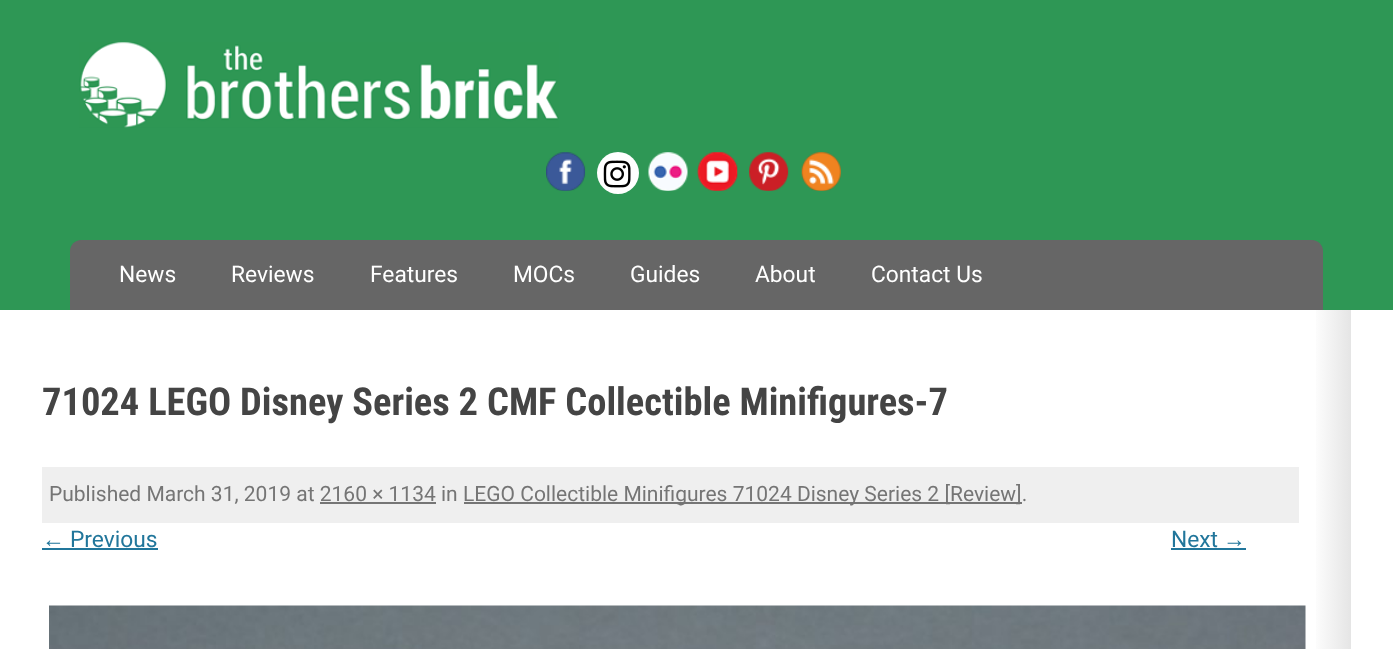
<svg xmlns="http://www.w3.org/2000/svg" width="1393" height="649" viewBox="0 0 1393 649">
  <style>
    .t1 { font: 22.75px Roboto; fill: #fff; }
    .t2 { font: bold 38.5px Roboto Condensed; fill: #444; }
    .t3 { font: 21px Roboto; fill: #757575; }
    .t4 { font: 22.75px Liberation Sans; fill: #21769b; }
    .t5 { font: 22.75px Roboto; fill: #21769b; }
  </style>
  <defs>
    <linearGradient id="g1" gradientUnits="userSpaceOnUse" x1="42" y1="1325" x2="1351" y2="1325"><stop offset="0.97" stop-color="#fff"/><stop offset="1" stop-color="#e5e5e5"/></linearGradient>
  </defs>
  <rect width="100%" height="100%" fill="#fff"/>
  <rect x="0" y="0" width="1393" height="310" fill="#2e9755"/>
  <image x="79" y="42" width="480" height="86" href="images/1.png"/>
  <image x="546" y="152" width="40" height="39" href="images/2.png"/>
  <circle cx="618" cy="173" r="21" fill="#fff"/>
  <image x="603" y="160" width="28" height="28" href="images/3.png"/>
  <image x="648" y="152" width="40" height="39" href="images/4.png"/>
  <image x="697" y="152" width="41" height="39" href="images/5.png"/>
  <image x="749" y="152" width="40" height="39" href="images/6.png"/>
  <image x="801" y="152" width="40" height="39" href="images/7.png"/>
  <path d="M81 240H1312C1318 240 1323 245 1323 251V310H70V251C70 245 75 240 81 240Z" fill="#666"/>
  <text x="119" y="282" class="t1">News</text>
  <text x="231" y="282" class="t1">Reviews</text>
  <text x="370" y="282" class="t1">Features</text>
  <text x="513" y="282" class="t1">MOCs</text>
  <text x="630" y="282" class="t1">Guides</text>
  <text x="755" y="282" class="t1">About</text>
  <text x="871" y="282" class="t1">Contact Us</text>
  <rect x="1316" y="310" width="35" height="339" fill="url(#g1)"/>
  <text x="42" y="415" class="t2">71024 LEGO Disney Series 2 CMF Collectible Minifigures-7</text>
  <rect x="42" y="467" width="1257" height="56" fill="#efefef"/>
  <text x="49" y="501" class="t3">Published March 31, 2019 at 2160 × 1134 in</text>
  <rect x="464" y="502" width="558" height="2" fill="#757575"/>
  <text x="463" y="501" class="t3">LEGO Collectible Minifigures 71024 Disney Series 2 [Review].</text>
  <rect x="320" y="502" width="116" height="2" fill="#757575"/>
  <text x="42" y="547" class="t4">←</text>
  <rect x="42" y="548" width="116" height="2" fill="#21769b"/>
  <text x="70" y="547" class="t5">Previous</text>
  <text x="1171" y="547" class="t5">Next</text>
  <text x="1223" y="547" class="t4">→</text>
  <rect x="1171" y="548" width="75" height="2" fill="#21769b"/>
  <image x="49" y="605" width="1257" height="44" href="images/8.png"/>
</svg>
